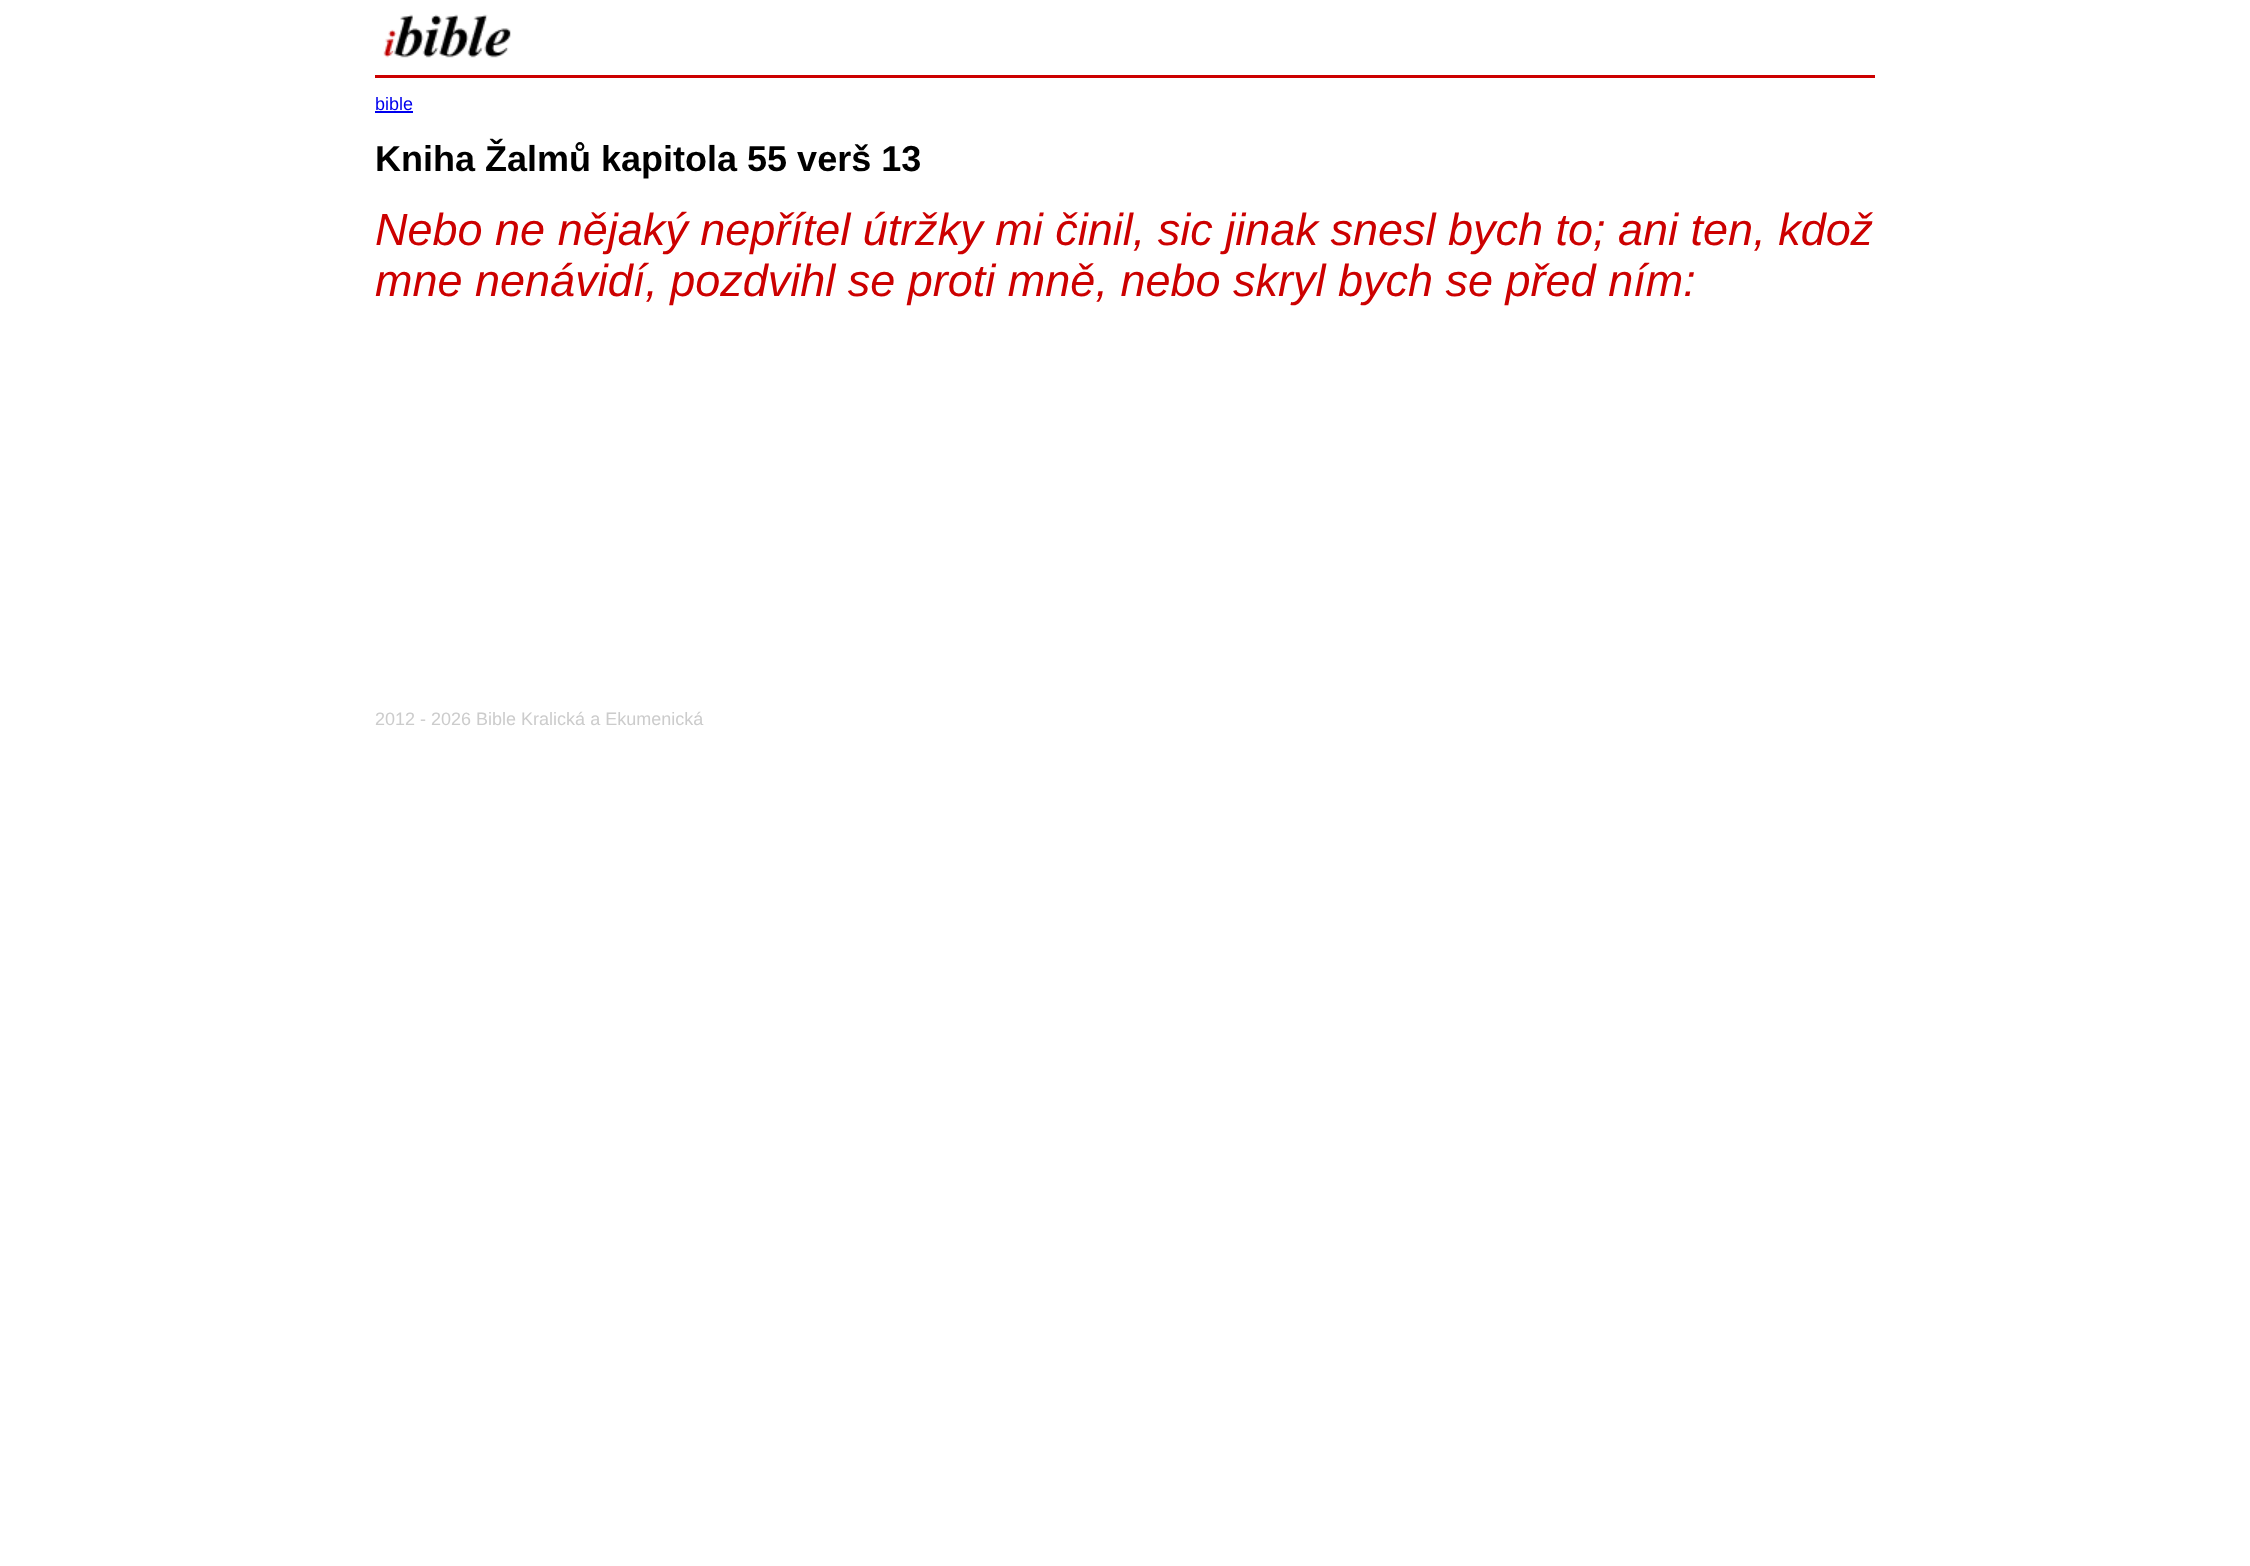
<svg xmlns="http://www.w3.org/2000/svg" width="2250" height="1566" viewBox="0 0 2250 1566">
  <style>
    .t1 { font: 18px Liberation Sans; fill: #00e; }
    .t2 { font: bold 36px Liberation Sans; fill: #000; }
    .t3 { font: italic 45px Liberation Sans; fill: #c00; }
    .t4 { font: 18px Liberation Sans; fill: #ccc; }
  </style>
  <rect width="100%" height="100%" fill="#fff"/>
  <rect x="375" y="75" width="1500" height="3" fill="#c00"/>
  <image x="383" y="14" width="128" height="44" href="images/1.png"/>
  <text x="375" y="110" class="t1">bible</text>
  <rect x="375" y="111" width="38" height="2" fill="#00e"/>
  <text x="375" y="171" class="t2">Kniha Žalmů kapitola 55 verš 13</text>
  <text x="375" y="245" class="t3">Nebo ne nějaký nepřítel útržky mi činil, sic jinak snesl bych to; ani ten, kdož</text>
  <text x="375" y="296" class="t3">mne nenávidí, pozdvihl se proti mně, nebo skryl bych se před ním:</text>
  <text x="375" y="725" class="t4">2012 - 2026 Bible Kralická a Ekumenická</text>
</svg>
